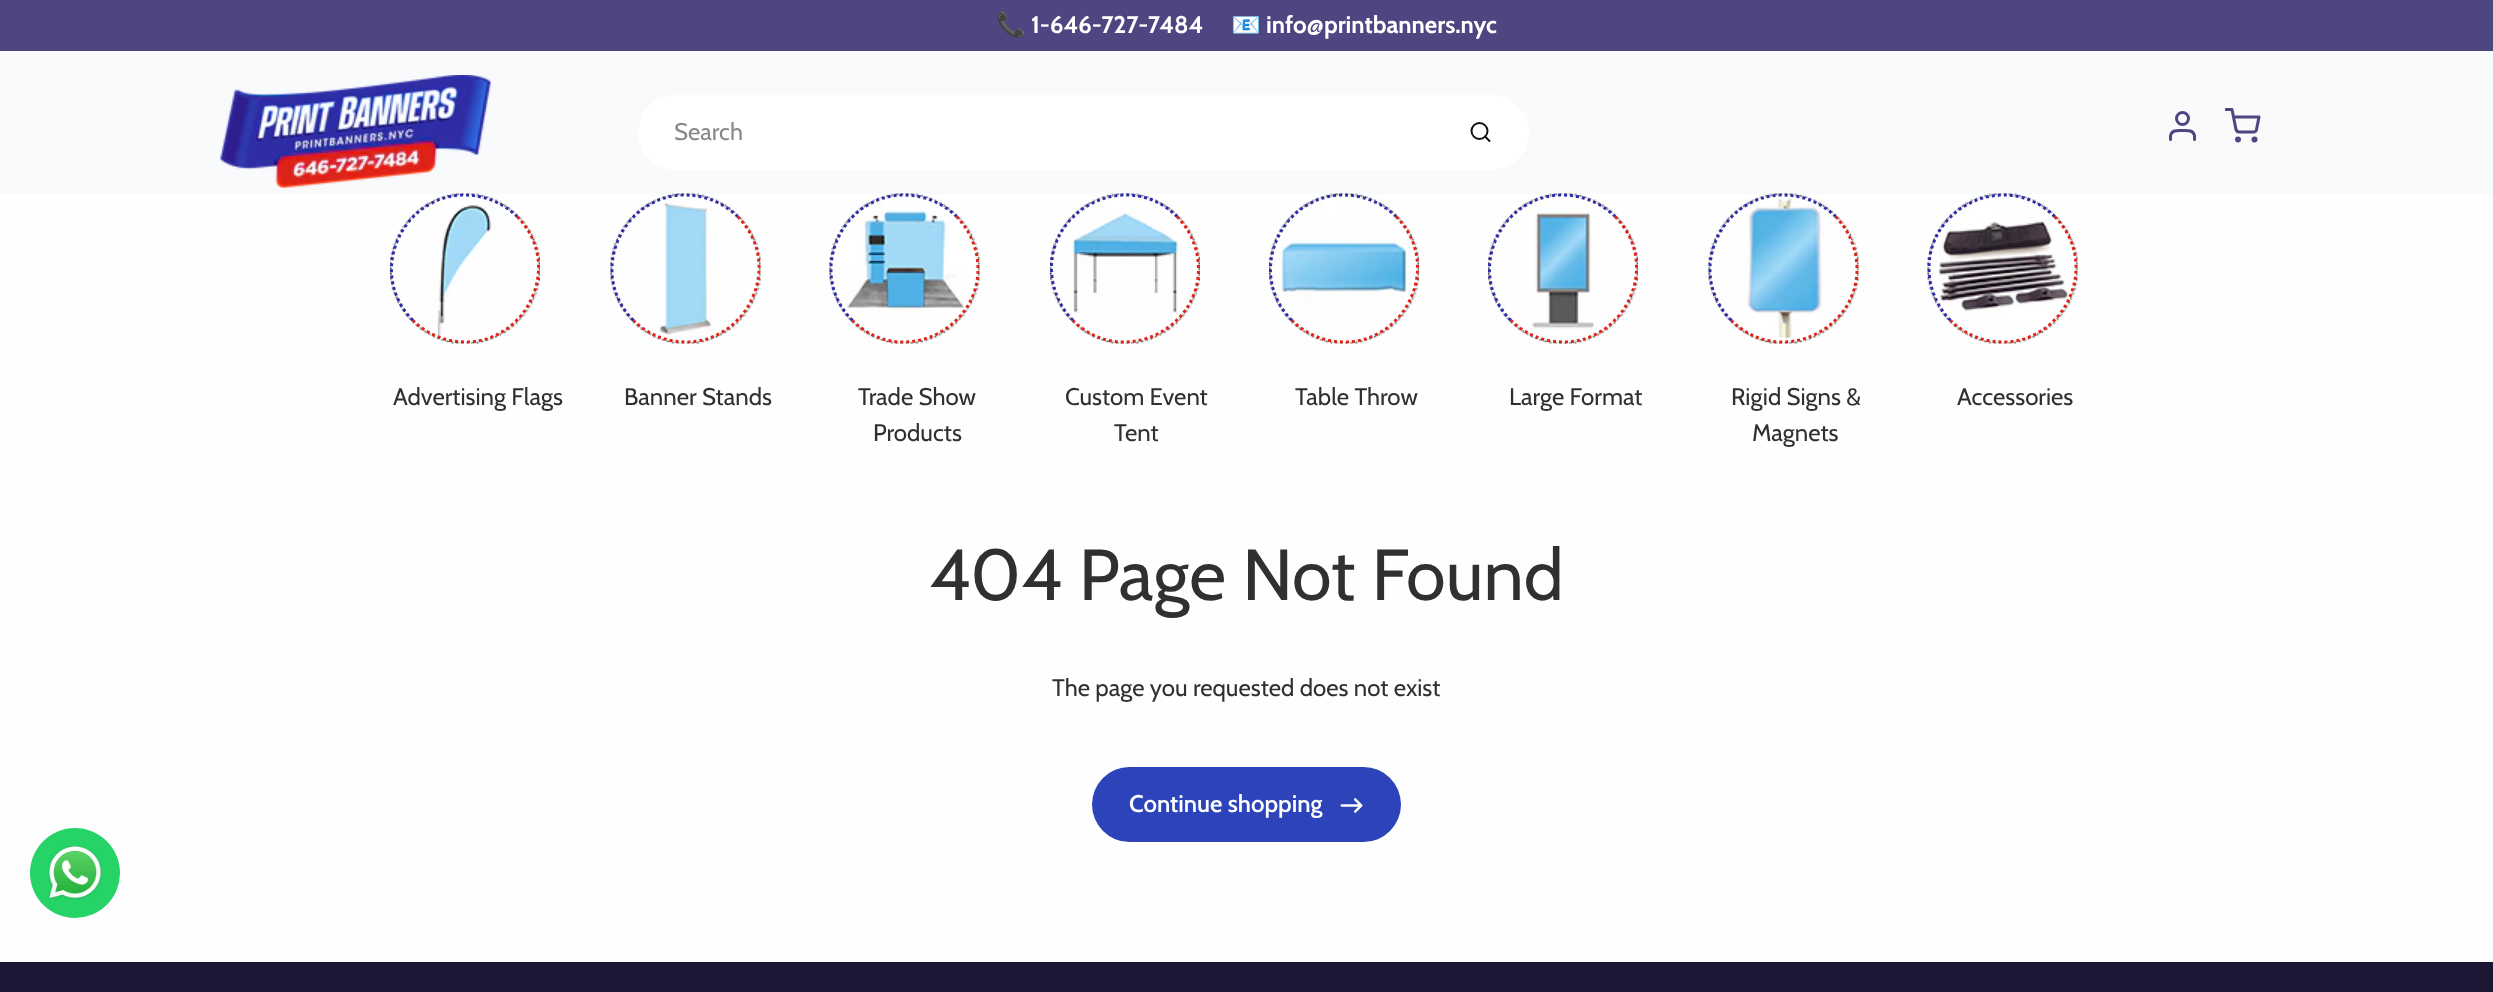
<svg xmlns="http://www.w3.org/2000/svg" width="2493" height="992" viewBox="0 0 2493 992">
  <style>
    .t1 { font: bold 24px Noto Color Emoji; fill: #fff; }
    .t2 { font: bold 24px Cabin; fill: #fff; }
    .t3 { font: 24px Cabin; fill: #898989; }
    .t4 { font: 24px Cabin; fill: #303030; }
    .t5 { font: 72px Cabin; fill: #303030; }
    .t6 { font: 600 24px Cabin; fill: #fff; }
  </style>
  <defs>
    <clipPath id="clip1"><rect x="2225" y="108" width="36" height="36"/></clipPath>
  </defs>
  <rect width="100%" height="100%" fill="#fefeff"/>
  <rect x="0" y="0" width="2493" height="51" fill="#4e4681"/>
  <text x="996" y="33" class="t1">📞</text>
  <text x="1031" y="33" class="t2">1-646-727-7484</text>
  <text x="1231" y="33" class="t1">📧</text>
  <text x="1266" y="33" class="t2">info@printbanners.nyc</text>
  <rect x="0" y="51" width="2493" height="143" fill="#f9fafc"/>
  <image x="220" y="75" width="271" height="113" href="images/1.png"/>
  <rect x="638" y="95" width="891" height="75" rx="37.5" fill="#fff"/>
  <text x="674" y="140" class="t3">Search</text>
  <circle cx="1479.5" cy="131" r="8" fill="none" stroke="#121212" stroke-width="2"/>
  <path d="M1489.5 141L1485 136.5" fill="none" stroke="#121212" stroke-width="2" stroke-linecap="round" stroke-linejoin="round"/>
  <path d="M2194.5 139.5V135.5C2193 129.5 2187 130.5 2182.5 130.5C2178 130.5 2172 129.5 2170.5 135.5V139.5" fill="none" stroke="#4e4681" stroke-width="3" stroke-linecap="round" stroke-linejoin="round"/>
  <circle cx="2182.5" cy="118.5" r="6" fill="none" stroke="#4e4681" stroke-width="3"/>
  <circle cx="2238" cy="139.5" r="1.5" fill="none" stroke="#4e4681" stroke-width="3"/>
  <circle cx="2254.5" cy="139.5" r="1.5" fill="none" stroke="#4e4681" stroke-width="3"/>
  <g clip-path="url(#clip1)">
    <path d="M2226 109.5H2232L2236 129.5C2236.5 131 2237.5 132 2239 132H2253.5C2255 132 2256.5 131 2256.5 129.5L2259 117H2233.5" fill="none" stroke="#4e4681" stroke-width="3" stroke-linecap="round" stroke-linejoin="round"/>
  </g>
  <image x="390" y="193" width="150" height="151" href="images/2.png"/>
  <path d="M517 216.5C568 267.5 521.5 354.5 450.5 340.5C436.5 337.5 423 330.5 413 320.5" fill="none" stroke="#de2319" stroke-width="3" stroke-dasharray="3 3"/>
  <path d="M413 320.5C362 269.5 408.5 182.5 479.5 196.5C493.5 199.5 507 206.5 517 216.5" fill="none" stroke="#2e2da5" stroke-width="3" stroke-dasharray="3 3"/>
  <text x="393" y="405" class="t4">Advertising Flags</text>
  <image x="610" y="193" width="151" height="151" href="images/3.png"/>
  <path d="M737.5 216.5C788.5 267.5 742 354.5 671 340.5C657 337.5 643.5 330.5 633.5 320.5" fill="none" stroke="#de2319" stroke-width="3" stroke-dasharray="3 3"/>
  <path d="M633.5 320.5C582.5 269.5 629 182.5 700 196.5C714 199.5 727.5 206.5 737.5 216.5" fill="none" stroke="#2e2da5" stroke-width="3" stroke-dasharray="3 3"/>
  <text x="624" y="405" class="t4">Banner Stands</text>
  <image x="829" y="193" width="151" height="151" href="images/4.png"/>
  <path d="M956.5 216.5C966.5 226.5 973.5 240 976.5 254C990.5 325 903.5 371.5 852.5 320.5" fill="none" stroke="#de2319" stroke-width="3" stroke-dasharray="3 3"/>
  <path d="M852.5 320.5C801.5 269.5 848 182.5 919 196.5C933 199.5 946.5 206.5 956.5 216.5" fill="none" stroke="#2e2da5" stroke-width="3" stroke-dasharray="3 3"/>
  <text x="858" y="405" class="t4">Trade Show</text>
  <text x="873" y="441" class="t4">Products</text>
  <image x="1050" y="193" width="150" height="151" href="images/5.png"/>
  <path d="M1177 216.5C1187 226.5 1194 240 1197 254C1211 325 1124 371.5 1073 320.5" fill="none" stroke="#de2319" stroke-width="3" stroke-dasharray="3 3"/>
  <path d="M1073 320.5C1063 310.5 1056 297 1053 283C1039 212 1126 165.5 1177 216.5" fill="none" stroke="#2e2da5" stroke-width="3" stroke-dasharray="3 3"/>
  <text x="1065" y="405" class="t4">Custom Event</text>
  <text x="1114" y="441" class="t4">Tent</text>
  <image x="1269" y="193" width="150" height="151" href="images/6.png"/>
  <path d="M1396 216.5C1447 267.5 1400.5 354.5 1329.5 340.5C1315.5 337.5 1302 330.5 1292 320.5" fill="none" stroke="#de2319" stroke-width="3" stroke-dasharray="3 3"/>
  <path d="M1292 320.5C1241 269.5 1287.5 182.5 1358.5 196.5C1372.5 199.5 1386 206.5 1396 216.5" fill="none" stroke="#2e2da5" stroke-width="3" stroke-dasharray="3 3"/>
  <text x="1295" y="405" class="t4">Table Throw</text>
  <image x="1488" y="193" width="150" height="151" href="images/7.png"/>
  <path d="M1615 216.5C1666 267.5 1619.5 354.5 1548.5 340.5C1534.5 337.5 1521 330.5 1511 320.5" fill="none" stroke="#de2319" stroke-width="3" stroke-dasharray="3 3"/>
  <path d="M1511 320.5C1460 269.5 1506.5 182.5 1577.5 196.5C1591.5 199.5 1605 206.5 1615 216.5" fill="none" stroke="#2e2da5" stroke-width="3" stroke-dasharray="3 3"/>
  <text x="1509" y="405" class="t4">Large Format</text>
  <image x="1708" y="193" width="151" height="151" href="images/8.png"/>
  <path d="M1835.5 216.5C1845.5 226.5 1852.5 240 1855.5 254C1869.5 325 1782.5 371.5 1731.5 320.5" fill="none" stroke="#de2319" stroke-width="3" stroke-dasharray="3 3"/>
  <path d="M1731.5 320.5C1680.5 269.5 1727 182.5 1798 196.5C1812 199.5 1825.5 206.5 1835.5 216.5" fill="none" stroke="#2e2da5" stroke-width="3" stroke-dasharray="3 3"/>
  <text x="1731" y="405" class="t4">Rigid Signs &amp;</text>
  <text x="1752" y="441" class="t4">Magnets</text>
  <image x="1927" y="193" width="151" height="151" href="images/9.png"/>
  <path d="M2054.5 216.5C2105.5 267.5 2059 354.5 1988 340.5C1974 337.5 1960.5 330.5 1950.5 320.5" fill="none" stroke="#de2319" stroke-width="3" stroke-dasharray="3 3"/>
  <path d="M1950.5 320.5C1940.5 310.5 1933.5 297 1930.5 283C1916.5 212 2003.5 165.5 2054.5 216.5" fill="none" stroke="#2e2da5" stroke-width="3" stroke-dasharray="3 3"/>
  <text x="1957" y="405" class="t4">Accessories</text>
  <text x="929" y="600" class="t5">404 Page Not Found</text>
  <text x="1052" y="696" class="t4">The page you requested does not exist</text>
  <rect x="1092" y="767" width="309" height="75" rx="37.5" fill="#2c43b9"/>
  <text x="1129" y="812" class="t6">Continue shopping</text>
  <image x="1340" y="798" width="23" height="15" href="images/10.png"/>
  <circle cx="75" cy="873" r="45" fill="#25d366"/>
  <image x="48" y="846" width="54" height="54" href="images/11.png"/>
  <rect x="0" y="962" width="2493" height="30" fill="#1b1735"/>
</svg>
